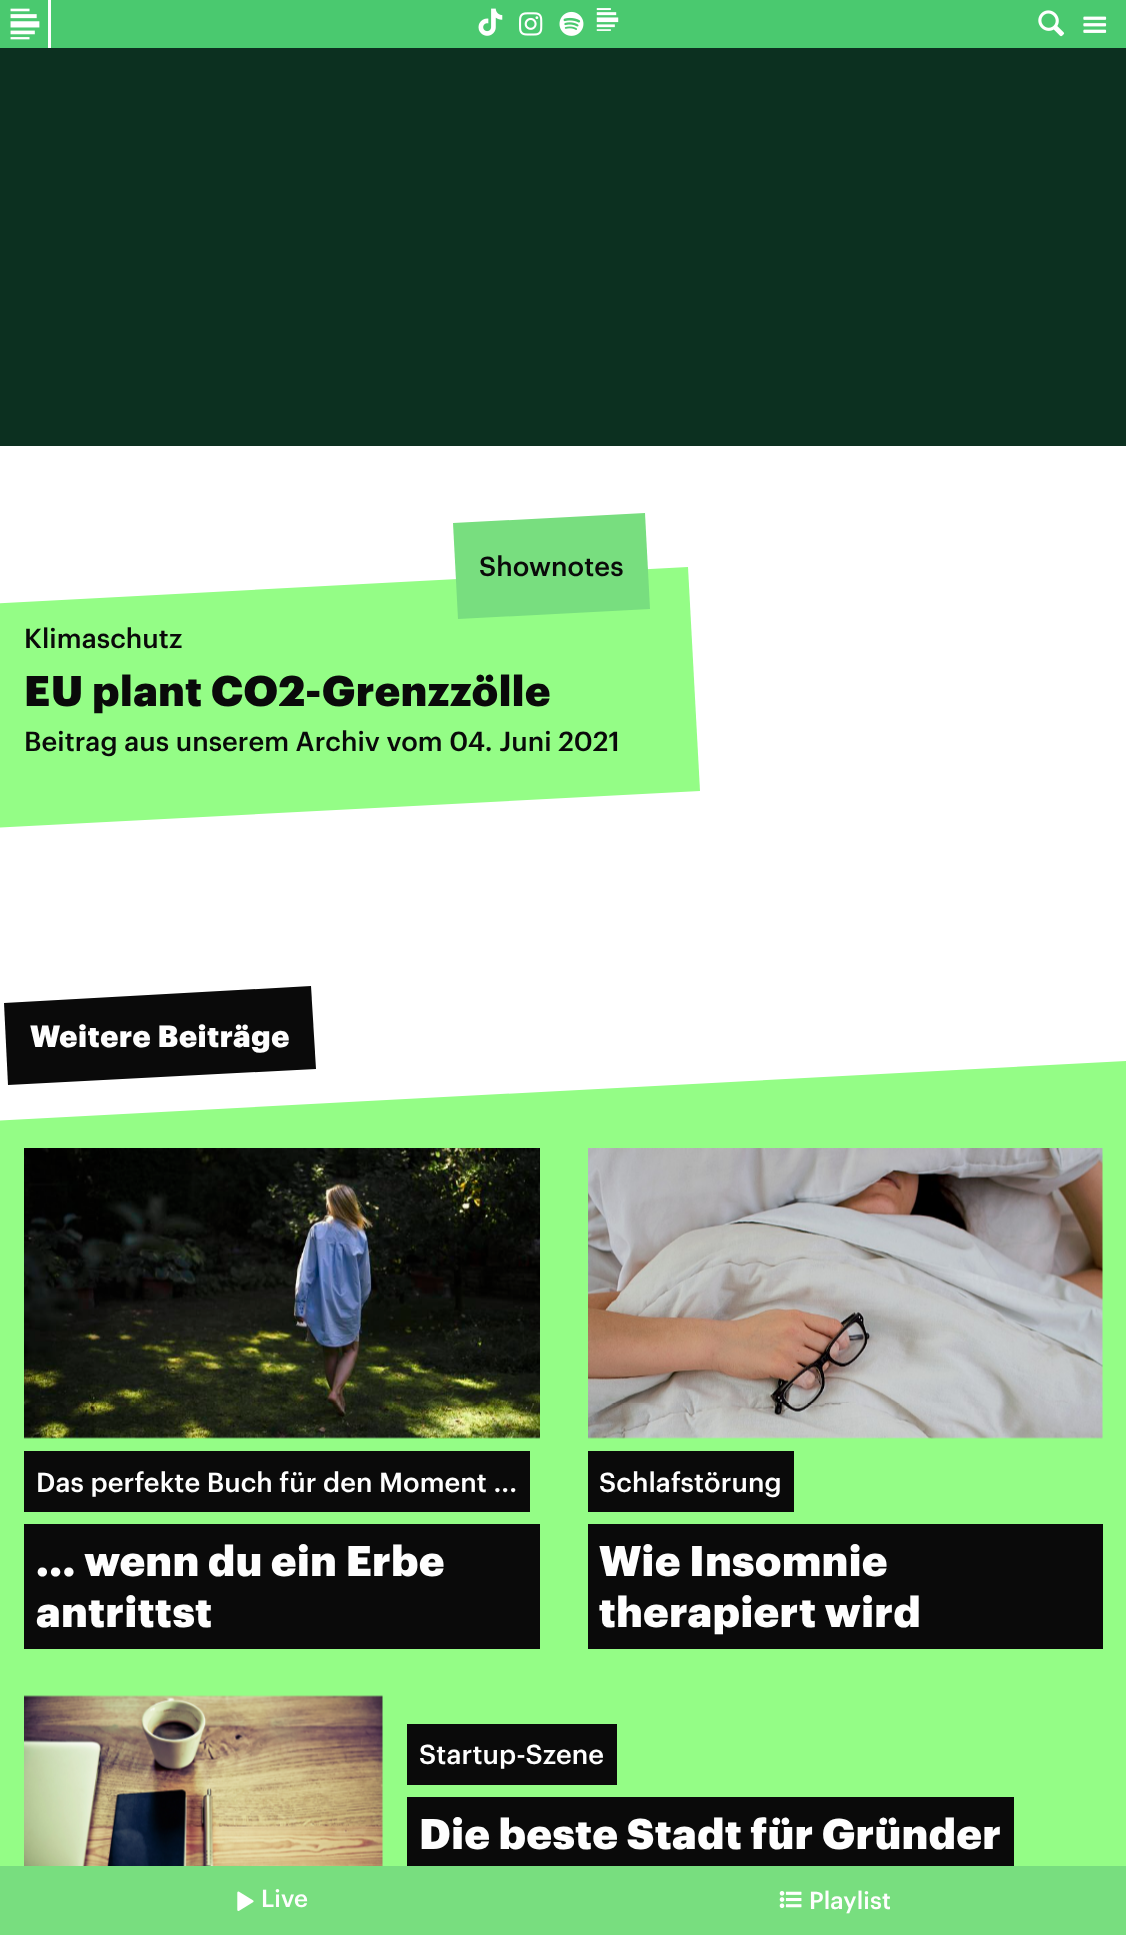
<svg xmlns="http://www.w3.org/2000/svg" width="1126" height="1935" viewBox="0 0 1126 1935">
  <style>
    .t1 { font: 500 27px Graphik; fill: #0a0a0a; }
    .t2 { font: 800 42px Graphik; letter-spacing: 0.6px; fill: #0a0a0a; }
    .t3 { font: 800 30px Graphik; letter-spacing: 0.6px; fill: #fefefe; }
    .t4 { font: 500 27px Graphik; fill: #fefefe; }
    .t5 { font: 800 42px Graphik; letter-spacing: 0.6px; fill: #fefefe; }
    .t6 { font: 500 24px Graphik; fill: #fefefe; }
  </style>
  <rect width="100%" height="100%" fill="#fff"/>
  <rect x="0" y="0" width="1126" height="48" fill="#4ac96f"/>
  <rect x="48" y="0" width="3" height="48" fill="#fefefe"/>
  <image x="10" y="8" width="30" height="32" href="images/1.png"/>
  <image x="478" y="8" width="25" height="28" href="images/2.png"/>
  <image x="519" y="12" width="24" height="24" href="images/3.png"/>
  <image x="559" y="11" width="25" height="25" href="images/4.png"/>
  <image x="596" y="8" width="23" height="23" href="images/5.png"/>
  <image x="1038" y="10" width="27" height="27" href="images/6.png"/>
  <image x="1083" y="16" width="24" height="17" href="images/7.png"/>
  <rect x="0" y="48" width="1126" height="398" fill="#0c3020"/>
  <path d="M-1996 708L688 567L700 791L-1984 931Z" fill="#94fd86"/>
  <path d="M453 523L645 513L650 609L458 619Z" fill="#78de7f"/>
  <text x="479" y="576" class="t1">Shownotes</text>
  <text x="24" y="648" class="t1">Klimaschutz</text>
  <text x="24" y="706" class="t2">EU plant CO2-Grenzzölle</text>
  <text x="24" y="751" class="t1">Beitrag aus unserem Archiv vom 04. Juni 2021</text>
  <path d="M4 1003L311 986L316 1069L8 1085Z" fill="#0a0a0a"/>
  <text x="30" y="1047" class="t3">Weitere Beiträge</text>
  <path d="M-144 1128L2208 1004L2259 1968L-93 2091Z" fill="#94fd86"/>
  <image x="24" y="1148" width="516" height="291" href="images/8.png"/>
  <rect x="24" y="1451" width="506" height="61" fill="#0a0a0a"/>
  <text x="36" y="1492" class="t4">Das perfekte Buch für den Moment ...</text>
  <rect x="24" y="1524" width="516" height="125" fill="#0a0a0a"/>
  <text x="36" y="1576" class="t5">... wenn du ein Erbe</text>
  <text x="36" y="1627" class="t5">antrittst</text>
  <image x="588" y="1148" width="515" height="291" href="images/9.png"/>
  <rect x="588" y="1451" width="206" height="61" fill="#0a0a0a"/>
  <text x="599" y="1492" class="t4">Schlafstörung</text>
  <rect x="588" y="1524" width="515" height="125" fill="#0a0a0a"/>
  <text x="599" y="1576" class="t5">Wie Insomnie</text>
  <text x="599" y="1627" class="t5">therapiert wird</text>
  <image x="24" y="1695" width="359" height="171" href="images/10.png"/>
  <rect x="407" y="1724" width="210" height="61" fill="#0a0a0a"/>
  <text x="419" y="1764" class="t4">Startup-Szene</text>
  <rect x="407" y="1797" width="607" height="69" fill="#0a0a0a"/>
  <text x="419" y="1849" class="t5">Die beste Stadt für Gründer</text>
  <rect x="0" y="1866" width="1126" height="69" fill="#78de7f"/>
  <image x="237" y="1891" width="17" height="20" href="images/11.png"/>
  <text x="261" y="1907" class="t6">Live</text>
  <image x="779" y="1891" width="23" height="17" href="images/12.png"/>
  <text x="809" y="1909" class="t6">Playlist</text>
</svg>
